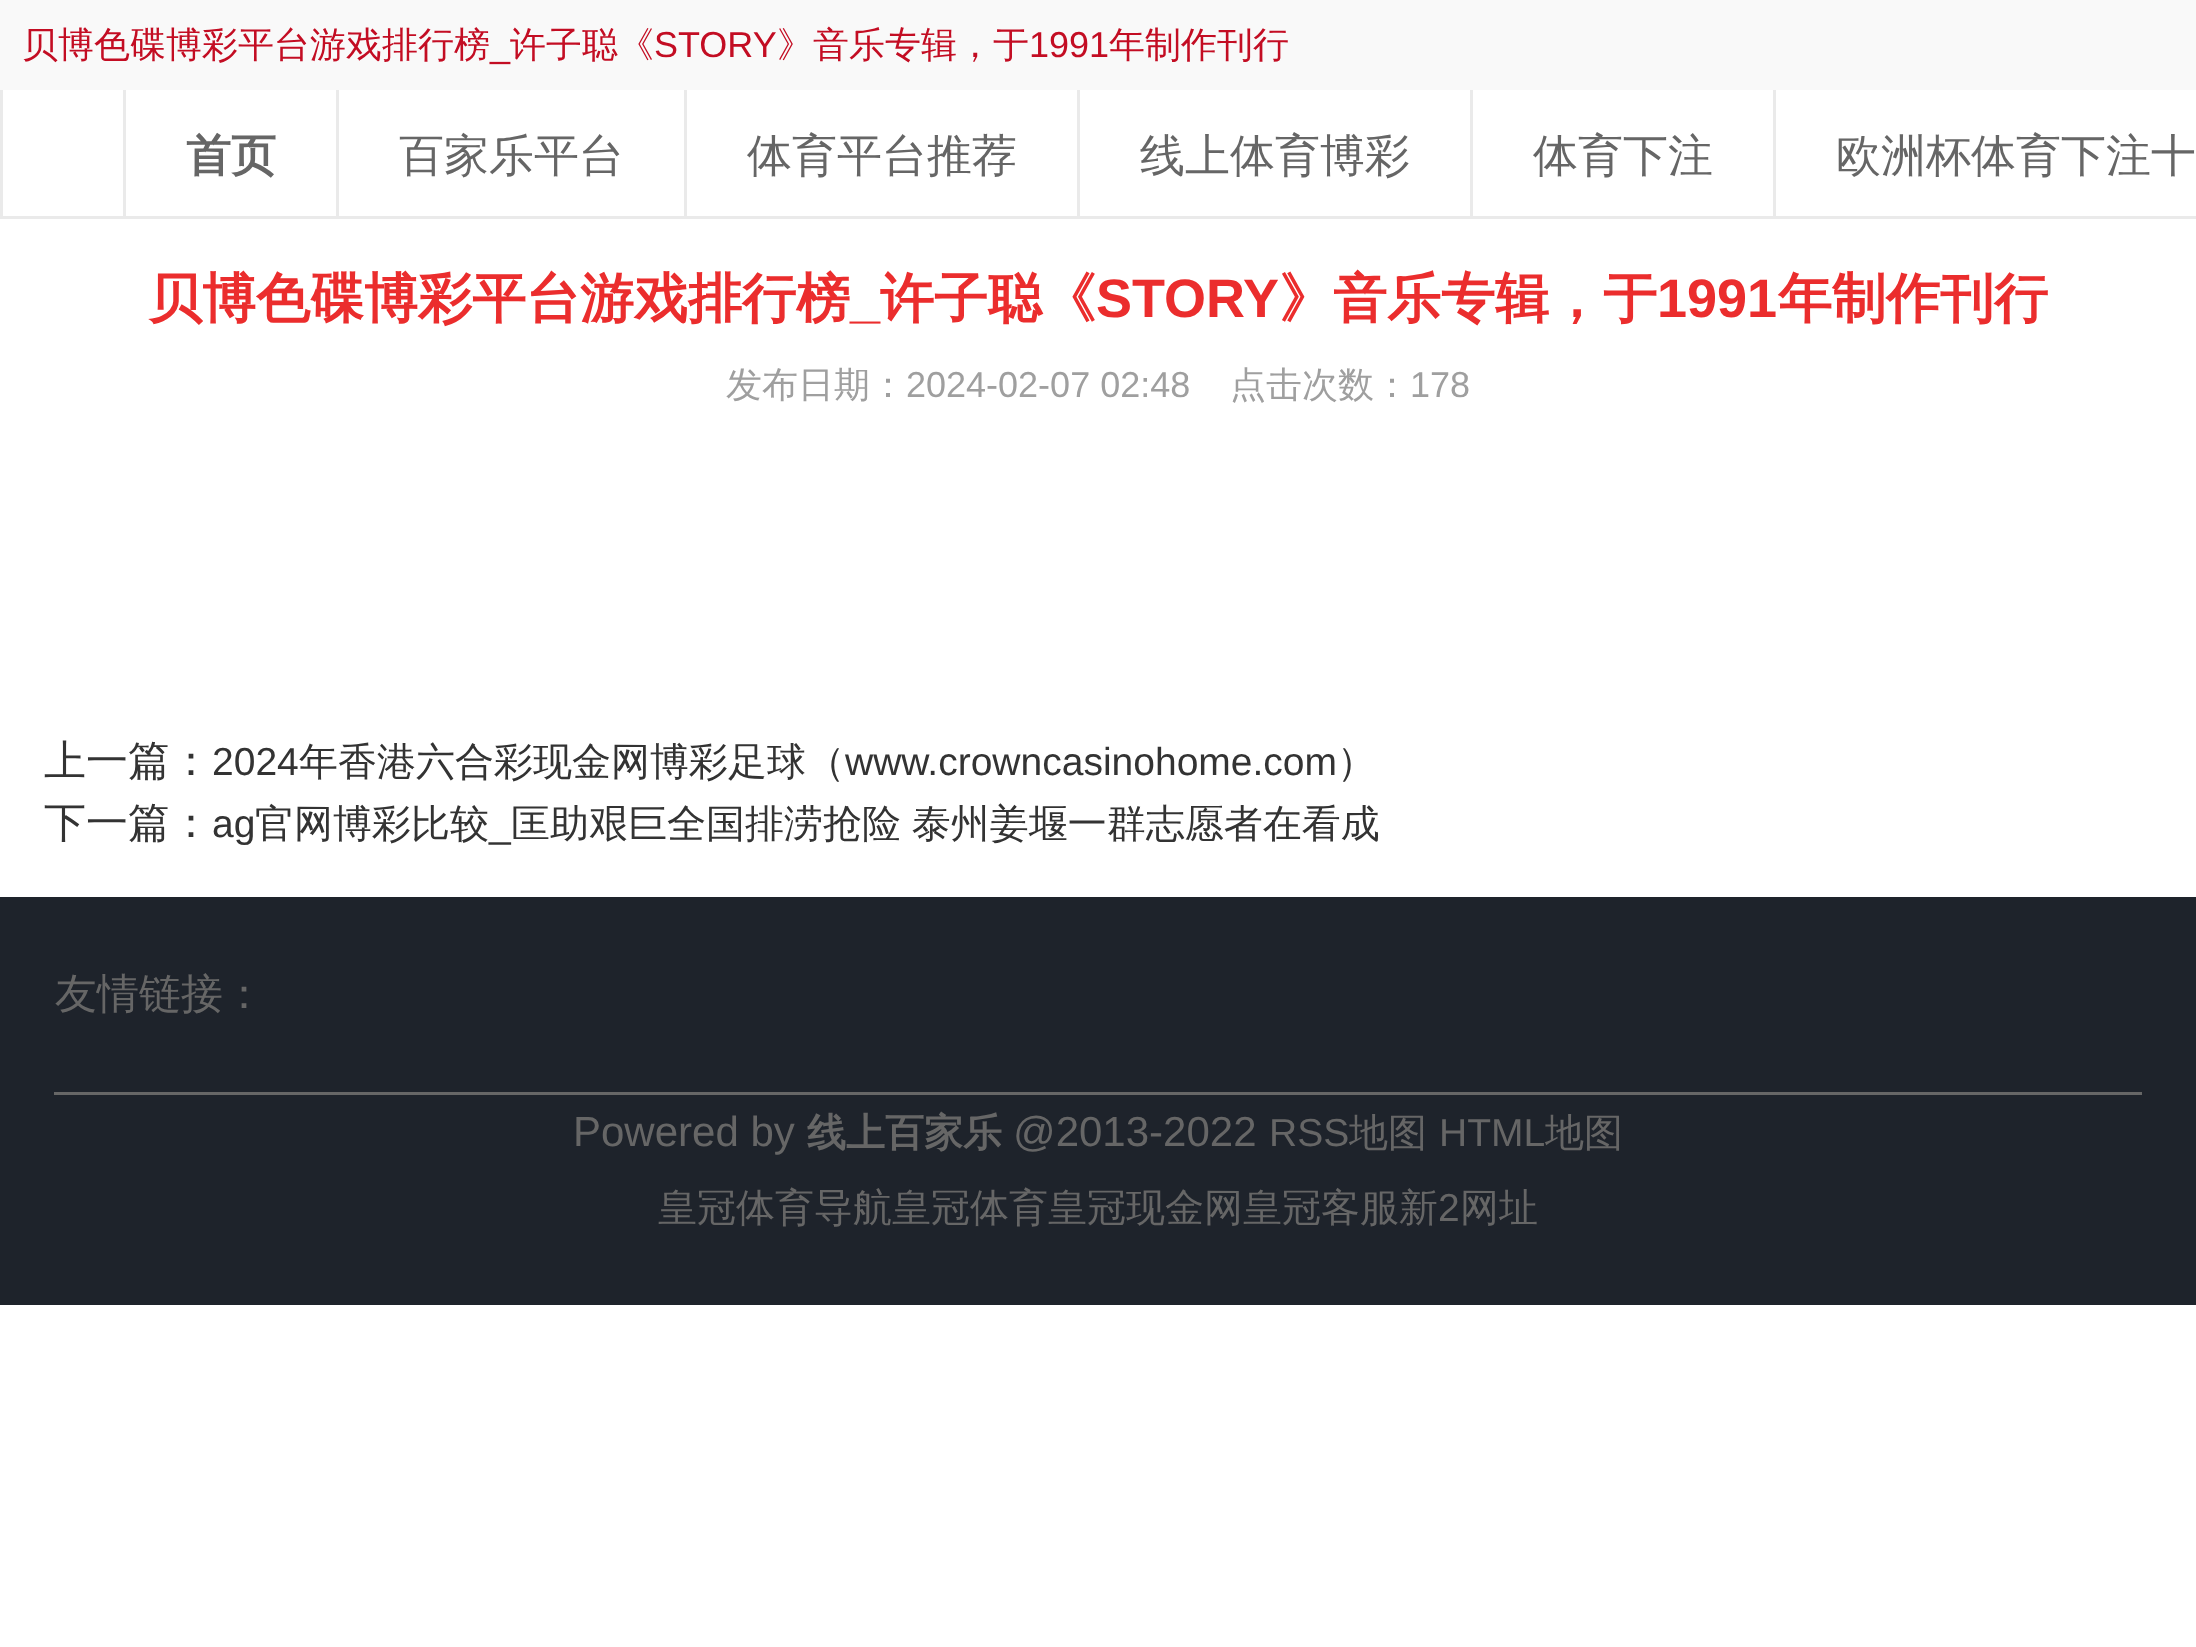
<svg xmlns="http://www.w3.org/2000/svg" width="2196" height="1647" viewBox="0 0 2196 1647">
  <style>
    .t1 { font: 500 36px WenQuanYi Zen Hei; fill: #c30d23; }
    .t2 { font: 36px Liberation Sans; fill: #c30d23; }
    .t3 { font: bold 45px WenQuanYi Zen Hei; fill: #666; }
    .t4 { font: 500 45px WenQuanYi Zen Hei; fill: #666; }
    .t5 { font: bold 54px WenQuanYi Zen Hei; fill: #eb2d2d; }
    .t6 { font: bold 54px Liberation Sans; fill: #eb2d2d; }
    .t7 { font: 500 36px WenQuanYi Zen Hei; fill: #9f9f9f; }
    .t8 { font: 36px Liberation Sans; fill: #9f9f9f; }
    .t9 { font: 500 42px WenQuanYi Zen Hei; fill: #333; }
    .t10 { font: 39px Liberation Sans; fill: #333; }
    .t11 { font: 500 39px WenQuanYi Zen Hei; fill: #333; }
    .t12 { font: 500 42px WenQuanYi Zen Hei; fill: #666; }
    .t13 { font: 42px Liberation Sans; fill: #666; }
    .t14 { font: bold 39px WenQuanYi Zen Hei; fill: #666; }
    .t15 { font: 39px Liberation Sans; fill: #666; }
    .t16 { font: 500 39px WenQuanYi Zen Hei; fill: #666; }
  </style>
  <rect width="100%" height="100%" fill="#fff"/>
  <rect x="0" y="0" width="2196" height="90" fill="#f9f9f9"/>
  <text x="22" y="57" class="t1">贝博色碟博彩平台游戏排行榜</text>
  <text x="510" y="57" class="t1">许子聪《</text>
  <text x="654" y="57" class="t2">STORY</text>
  <text x="777" y="57" class="t1">》音乐专辑，于</text>
  <text x="1029" y="57" class="t2">1991</text>
  <text x="1109" y="57" class="t1">年制作刊行</text>
  <text x="490" y="57" class="t2">_</text>
  <rect x="0" y="216" width="2196" height="3" fill="#eaeaea"/>
  <rect x="0" y="90" width="3" height="126" fill="#eaeaea"/>
  <rect x="123" y="90" width="3" height="126" fill="#eaeaea"/>
  <rect x="336" y="90" width="3" height="126" fill="#eaeaea"/>
  <text x="186" y="171" class="t3">首页</text>
  <rect x="684" y="90" width="3" height="126" fill="#eaeaea"/>
  <text x="399" y="171" class="t4">百家乐平台</text>
  <rect x="1077" y="90" width="3" height="126" fill="#eaeaea"/>
  <text x="747" y="171" class="t4">体育平台推荐</text>
  <rect x="1470" y="90" width="3" height="126" fill="#eaeaea"/>
  <text x="1140" y="171" class="t4">线上体育博彩</text>
  <rect x="1773" y="90" width="3" height="126" fill="#eaeaea"/>
  <text x="1533" y="171" class="t4">体育下注</text>
  <text x="1836" y="171" class="t4">欧洲杯体育下注十</text>
  <text x="148" y="317" class="t5">贝博色碟博彩平台游戏排行榜</text>
  <text x="850" y="317" class="t6">_</text>
  <text x="880" y="317" class="t5">许子聪《</text>
  <text x="1096" y="317" class="t6">STORY</text>
  <text x="1279" y="317" class="t5">》音乐专辑，于</text>
  <text x="1657" y="317" class="t6">1991</text>
  <text x="1778" y="317" class="t5">年制作刊行</text>
  <text x="726" y="397" class="t7">发布日期：</text>
  <text x="906" y="397" class="t8">2024-02-07 02:48</text>
  <text x="1230" y="397" class="t7">点击次数：</text>
  <text x="1410" y="397" class="t8">178</text>
  <text x="44" y="775" class="t9">上一篇：</text>
  <text x="212" y="775" class="t10">2024</text>
  <text x="299" y="775" class="t11">年香港六合彩现金网博彩足球（</text>
  <text x="845" y="775" class="t10">www.crowncasinohome.com</text>
  <text x="1337" y="775" class="t11">）</text>
  <text x="44" y="837" class="t9">下一篇：</text>
  <text x="212" y="837" class="t10">ag</text>
  <text x="255" y="837" class="t11">官网博彩比较</text>
  <text x="489" y="837" class="t10">_</text>
  <text x="511" y="837" word-spacing="-1" class="t11">匡助艰巨全国排涝抢险 泰州姜堰一群志愿者在看成</text>
  <rect x="0" y="897" width="2196" height="408" fill="#1e232b"/>
  <rect x="54" y="1092" width="2088" height="3" fill="#666"/>
  <text x="55" y="1008" class="t12">友情链接：</text>
  <text x="573" y="1146" class="t13">Powered by</text>
  <text x="807" y="1146" class="t14">线上百家乐</text>
  <text x="1013" y="1146" class="t13">@2013-2022</text>
  <text x="1269" y="1146" class="t15">RSS</text>
  <text x="1349" y="1146" class="t16">地图</text>
  <text x="1439" y="1146" class="t15">HTML</text>
  <text x="1545" y="1146" class="t16">地图</text>
  <text x="658" y="1221" class="t16">皇冠体育导航皇冠体育皇冠现金网皇冠客服新</text>
  <text x="1438" y="1221" class="t15">2</text>
  <text x="1460" y="1221" class="t16">网址</text>
</svg>
